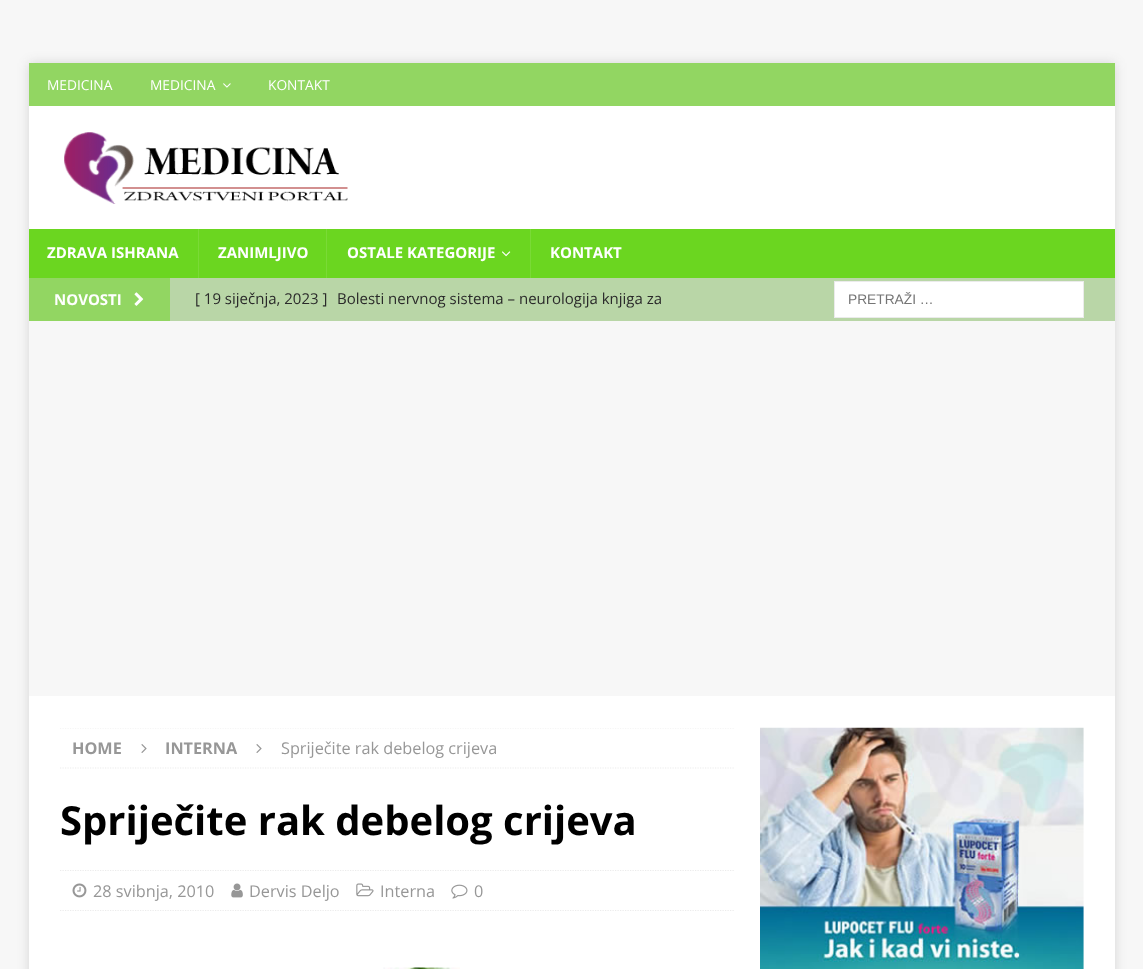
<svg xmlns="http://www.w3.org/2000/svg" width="1143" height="969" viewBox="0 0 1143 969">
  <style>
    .t1 { font: 13.75px Open Sans; fill: #fff; }
    .t2 { font: bold 15px Open Sans; fill: #fff; }
    .t3 { font: 15px Open Sans; fill: #2a2a2a; }
    .t4 { font: 13.75px Liberation Sans; fill: #757575; }
    .t5 { font: bold 16.25px Open Sans; fill: #979797; }
    .t6 { font: 16.25px Open Sans; fill: #979797; }
    .t7 { font: bold 40px Open Sans; fill: #000; }
  </style>
  <defs>
    <clipPath id="clip1"><path d="M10 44H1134V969H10ZM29 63H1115V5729H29Z" clip-rule="evenodd"/></clipPath>
    <clipPath id="clip2"><rect x="60" y="728" width="674" height="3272"/></clipPath>
  </defs>
  <rect width="100%" height="100%" fill="#f7f7f7"/>
  <g clip-path="url(#clip1)">
    <rect x="29" y="63" width="1086" height="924" fill="#3232322b" filter="blur(6px)"/>
  </g>
  <rect x="29" y="63" width="1086" height="43" fill="#92d662"/>
  <text x="47" y="90" class="t1">MEDICINA</text>
  <text x="150" y="90" class="t1">MEDICINA</text>
  <image x="223" y="83" width="8" height="5" href="images/1.png"/>
  <text x="268" y="90" class="t1">KONTAKT</text>
  <rect x="29" y="106" width="1086" height="123" fill="#fff"/>
  <image x="64" y="132" width="284" height="72" href="images/2.png"/>
  <rect x="29" y="229" width="1086" height="49" fill="#6bd620"/>
  <text x="47" y="258" class="t2">ZDRAVA ISHRANA</text>
  <rect x="198" y="229" width="1" height="49" fill="#7ada36"/>
  <text x="218" y="258" class="t2">ZANIMLJIVO</text>
  <rect x="326" y="229" width="1" height="49" fill="#7ada36"/>
  <text x="347" y="258" class="t2">OSTALE KATEGORIJE</text>
  <image x="502" y="251" width="9" height="6" href="images/3.png"/>
  <rect x="530" y="229" width="1" height="49" fill="#7ada36"/>
  <text x="550" y="258" class="t2">KONTAKT</text>
  <rect x="170" y="278" width="945" height="43" fill="#b9d6a7"/>
  <rect x="29" y="278" width="141" height="43" fill="#92d662"/>
  <text x="54" y="305" class="t2">NOVOSTI</text>
  <image x="134" y="292" width="10" height="14" href="images/4.png"/>
  <text x="195" y="304" class="t3">[ 19 siječnja, 2023 ]</text>
  <text x="337" y="304" class="t3">Bolesti nervnog sistema – neurologija knjiga za</text>
  <rect x="834.5" y="281.5" width="249" height="36" fill="#fff" stroke="#ebebeb"/>
  <text x="848" y="304" class="t4">PRETRAŽI …</text>
  <rect x="29" y="696" width="1086" height="273" fill="#fff"/>
  <g clip-path="url(#clip2)">
    <path d="M60 728H734" fill="none" stroke="#ebebeb" stroke-width="1.2" stroke-dasharray="1.25 1.25"/>
  </g>
  <path d="M60 768H734" fill="none" stroke="#ebebeb" stroke-width="1.2" stroke-dasharray="1.25 1.25"/>
  <text x="72" y="754" class="t5">HOME</text>
  <image x="141" y="744" width="6" height="9" href="images/5.png"/>
  <text x="165" y="754" class="t5">INTERNA</text>
  <image x="256" y="744" width="6" height="9" href="images/5.png"/>
  <text x="281" y="754" class="t6">Spriječite rak debelog crijeva</text>
  <text x="60" y="835" class="t7">Spriječite rak debelog crijeva</text>
  <path d="M60 870.5H734" fill="none" stroke="#ebebeb" stroke-width="1.2" stroke-dasharray="1.25 1.25"/>
  <path d="M60 910.5H734" fill="none" stroke="#ebebeb" stroke-width="1.2" stroke-dasharray="1.25 1.25"/>
  <image x="72" y="883" width="15" height="15" href="images/6.png"/>
  <text x="93" y="897" class="t6">28 svibnja, 2010</text>
  <image x="231" y="883" width="12" height="15" href="images/7.png"/>
  <text x="249" y="897" class="t6">Dervis Deljo</text>
  <image x="356" y="883" width="18" height="14" href="images/8.png"/>
  <text x="380" y="897" class="t6">Interna</text>
  <image x="451" y="884" width="17" height="15" href="images/9.png"/>
  <text x="474" y="897" class="t6">0</text>
  <image x="383" y="967" width="77" height="2" href="images/10.png"/>
  <image x="760" y="727" width="324" height="242" href="images/11.png"/>
</svg>
